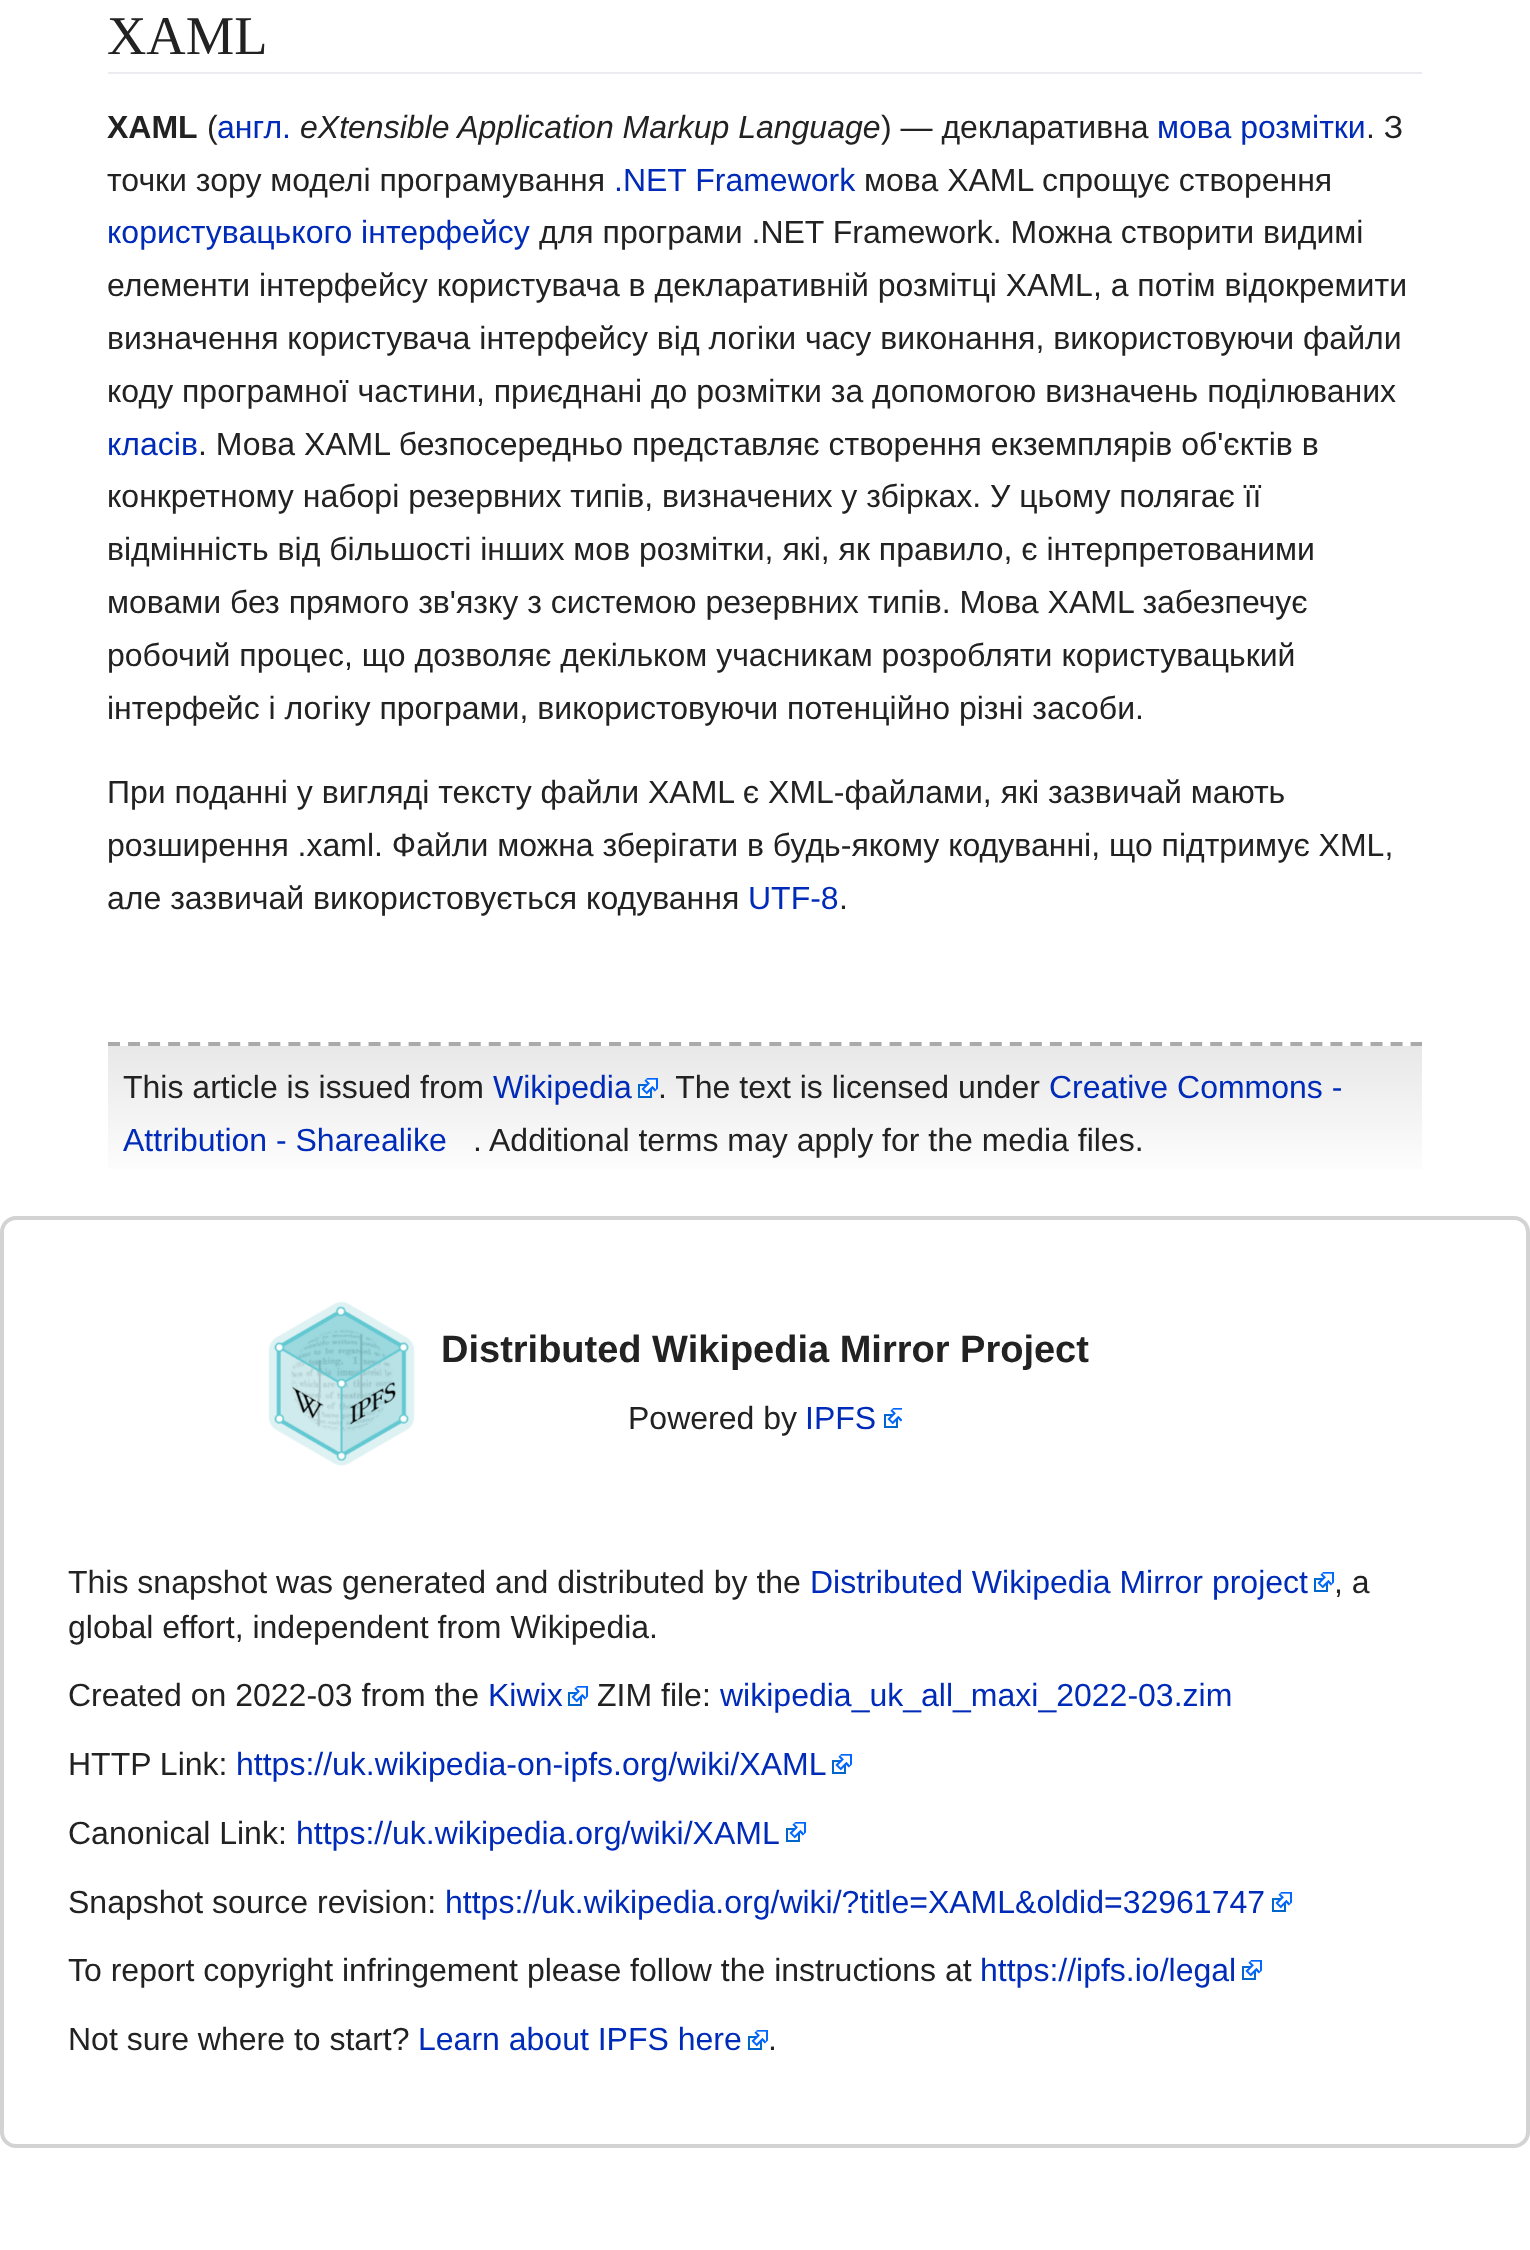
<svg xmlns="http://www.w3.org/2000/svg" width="1530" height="2250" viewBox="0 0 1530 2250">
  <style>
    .t1 { font: 54.5px Liberation Serif; fill: #222; }
    .t2 { font: bold 32px Liberation Sans; fill: #222; }
    .t3 { font: 32px Liberation Sans; fill: #222; }
    .t4 { font: 32px Liberation Sans; fill: #002bb8; }
    .t5 { font: italic 32px Liberation Sans; fill: #222; }
    .t6 { font: bold 38px Liberation Sans; fill: #222; }
  </style>
  <defs>
    <linearGradient id="g1" gradientUnits="userSpaceOnUse" x1="765" y1="1046" x2="765" y2="1184"><stop offset="0" stop-color="#e8e8e8"/><stop offset="1" stop-color="#fff"/></linearGradient>
  </defs>
  <rect width="100%" height="100%" fill="#fff"/>
  <rect x="108" y="72" width="1314" height="2" fill="#eaecf0"/>
  <text x="107" y="54" class="t1">XAML</text>
  <text x="107" y="138" class="t2">XAML</text>
  <text x="207" y="138" class="t3">(</text>
  <text x="217" y="138" class="t4">англ.</text>
  <text x="300" y="138" class="t5">eXtensible Application Markup Language</text>
  <text x="881" y="138" class="t3">) — декларативна</text>
  <text x="1157" y="138" class="t4">мова розмітки</text>
  <text x="1366" y="138" class="t3">. З</text>
  <text x="107" y="191" class="t3">точки зору моделі програмування</text>
  <text x="614" y="191" class="t4">.NET Framework</text>
  <text x="864" y="191" class="t3">мова XAML спрощує створення</text>
  <text x="107" y="243" class="t4">користувацького інтерфейсу</text>
  <text x="539" y="243" class="t3">для програми .NET Framework. Можна створити видимі</text>
  <text x="107" y="296" class="t3">елементи інтерфейсу користувача в декларативній розмітці XAML, а потім відокремити</text>
  <text x="107" y="349" class="t3">визначення користувача інтерфейсу від логіки часу виконання, використовуючи файли</text>
  <text x="107" y="402" class="t3">коду програмної частини, приєднані до розмітки за допомогою визначень поділюваних</text>
  <text x="107" y="455" class="t4">класів</text>
  <text x="198" y="455" class="t3">. Мова XAML безпосередньо представляє створення екземплярів об'єктів в</text>
  <text x="107" y="507" class="t3">конкретному наборі резервних типів, визначених у збірках. У цьому полягає її</text>
  <text x="107" y="560" class="t3">відмінність від більшості інших мов розмітки, які, як правило, є інтерпретованими</text>
  <text x="107" y="613" class="t3">мовами без прямого зв'язку з системою резервних типів. Мова XAML забезпечує</text>
  <text x="107" y="666" class="t3">робочий процес, що дозволяє декільком учасникам розробляти користувацький</text>
  <text x="107" y="719" class="t3">інтерфейс і логіку програми, використовуючи потенційно різні засоби.</text>
  <text x="107" y="803" class="t3">При поданні у вигляді тексту файли XAML є XML-файлами, які зазвичай мають</text>
  <text x="107" y="856" class="t3">розширення .xaml. Файли можна зберігати в будь-якому кодуванні, що підтримує XML,</text>
  <text x="107" y="909" class="t3">але зазвичай використовується кодування</text>
  <text x="748" y="909" class="t4">UTF-8</text>
  <text x="839" y="909" class="t3">.</text>
  <rect x="108" y="1046" width="1314" height="123" fill="url(#g1)"/>
  <path d="M108 1044H1422" fill="none" stroke="#aaa" stroke-width="4" stroke-dasharray="12 8.04"/>
  <text x="123" y="1098" class="t3">This article is issued from</text>
  <text x="493" y="1098" class="t4">Wikipedia</text>
  <image x="638" y="1078" width="20" height="20" href="images/1.png"/>
  <text x="658" y="1098" class="t3">. The text is licensed under</text>
  <text x="1049" y="1098" class="t4">Creative Commons -</text>
  <text x="123" y="1151" class="t4">Attribution - Sharealike</text>
  <text x="473" y="1151" class="t3">. Additional terms may apply for the media files.</text>
  <rect x="2" y="1218" width="1526" height="928" rx="14" fill="none" stroke="#d3d3d3" stroke-width="4"/>
  <image x="268" y="1301" width="147" height="165" href="images/2.png"/>
  <text x="441" y="1362" class="t6">Distributed Wikipedia Mirror Project</text>
  <text x="628" y="1429" class="t3">Powered by</text>
  <text x="805" y="1429" class="t4">IPFS</text>
  <image x="884" y="1408" width="18" height="20" href="images/3.png"/>
  <text x="68" y="1593" class="t3">This snapshot was generated and distributed by the</text>
  <text x="810" y="1593" class="t4">Distributed Wikipedia Mirror project</text>
  <image x="1314" y="1572" width="20" height="20" href="images/4.png"/>
  <text x="1334" y="1593" class="t3">, a</text>
  <text x="68" y="1638" class="t3">global effort, independent from Wikipedia.</text>
  <text x="68" y="1706" class="t3">Created on 2022-03 from the</text>
  <text x="488" y="1706" class="t4">Kiwix</text>
  <image x="568" y="1686" width="20" height="20" href="images/4.png"/>
  <text x="597" y="1706" class="t3">ZIM file:</text>
  <text x="720" y="1706" class="t4">wikipedia_uk_all_maxi_2022-03.zim</text>
  <text x="68" y="1775" class="t3">HTTP Link:</text>
  <text x="236" y="1775" class="t4">https://uk.wikipedia-on-ipfs.org/wiki/XAML</text>
  <image x="832" y="1754" width="20" height="20" href="images/4.png"/>
  <text x="68" y="1844" class="t3">Canonical Link:</text>
  <text x="296" y="1844" class="t4">https://uk.wikipedia.org/wiki/XAML</text>
  <image x="786" y="1822" width="20" height="20" href="images/4.png"/>
  <text x="68" y="1913" class="t3">Snapshot source revision:</text>
  <text x="445" y="1913" class="t4">https://uk.wikipedia.org/wiki/?title=XAML&amp;oldid=32961747</text>
  <image x="1272" y="1892" width="20" height="20" href="images/4.png"/>
  <text x="68" y="1981" class="t3">To report copyright infringement please follow the instructions at</text>
  <text x="980" y="1981" class="t4">https://ipfs.io/legal</text>
  <image x="1242" y="1960" width="20" height="20" href="images/4.png"/>
  <text x="68" y="2050" class="t3">Not sure where to start?</text>
  <text x="418" y="2050" class="t4">Learn about IPFS here</text>
  <image x="748" y="2030" width="20" height="20" href="images/4.png"/>
  <text x="768" y="2050" class="t3">.</text>
</svg>
